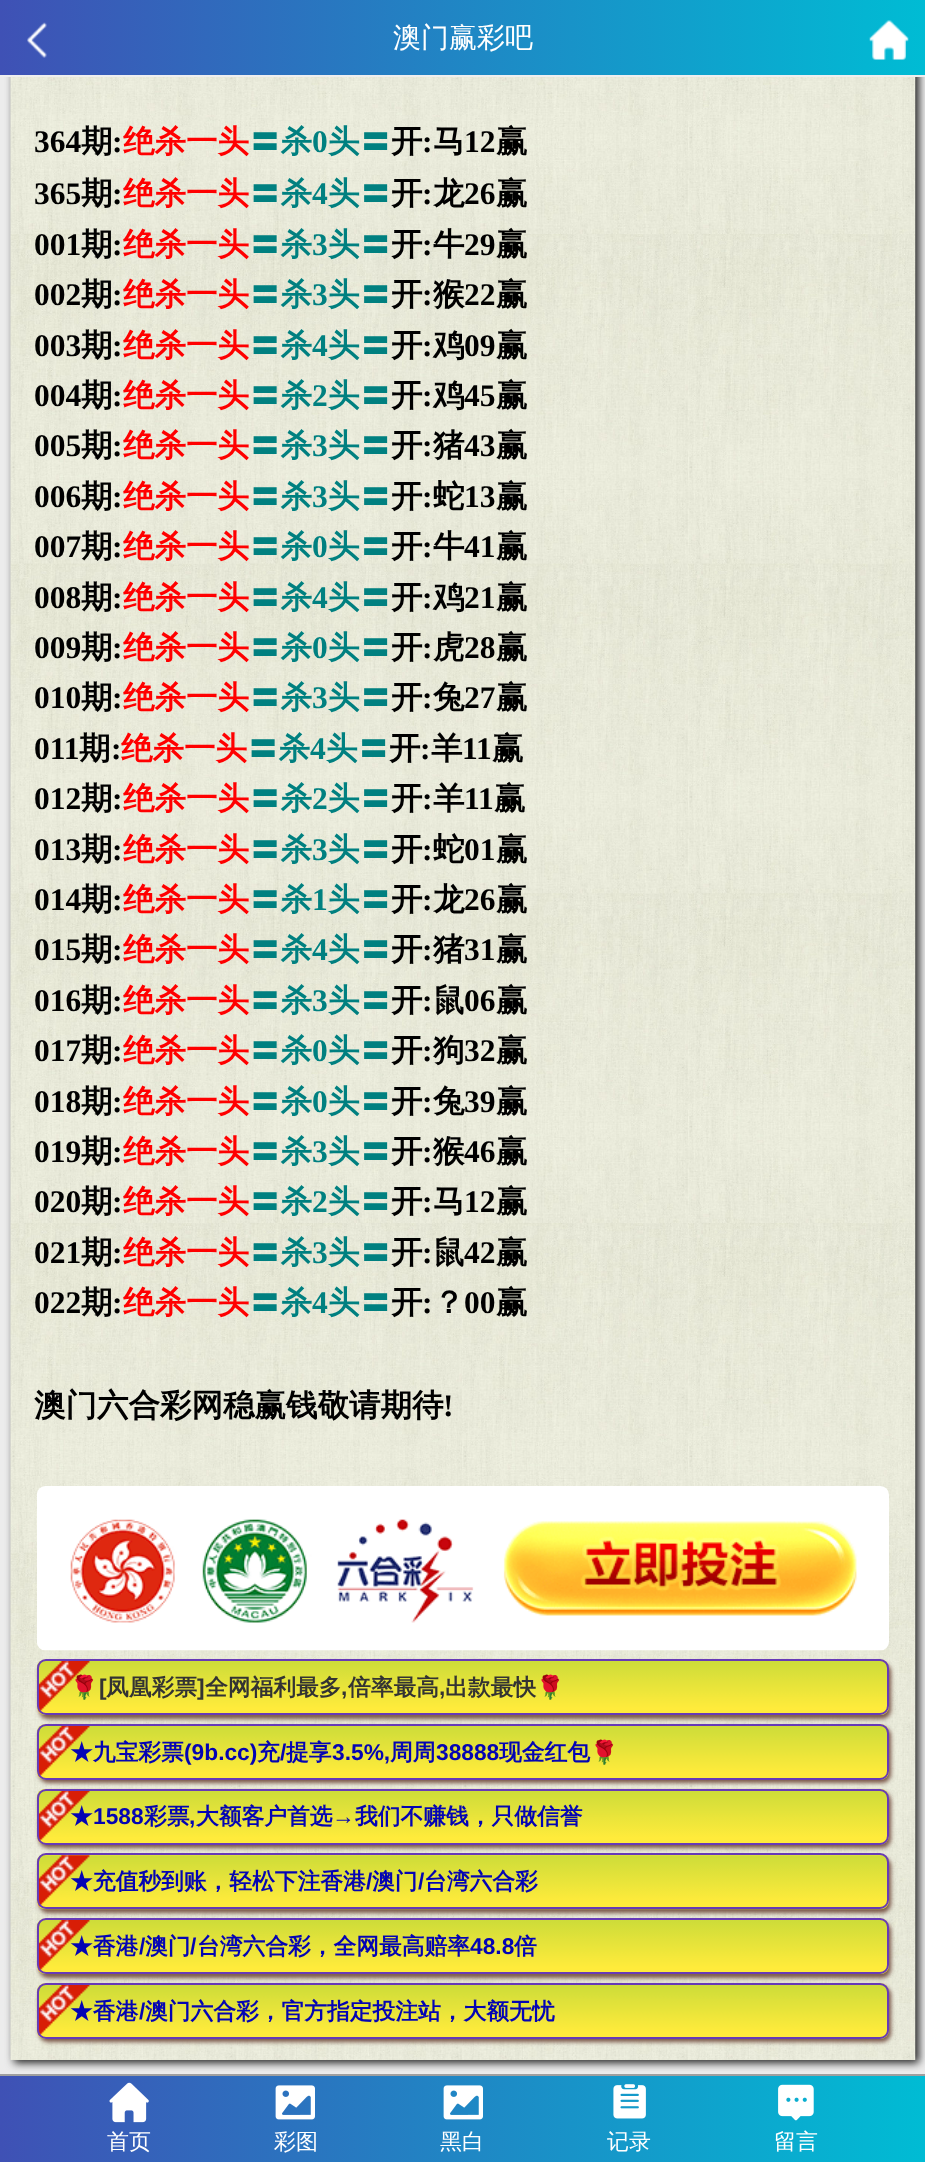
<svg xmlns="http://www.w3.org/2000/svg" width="925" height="2162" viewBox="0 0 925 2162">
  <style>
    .t1 { font: 500 28px WenQuanYi Zen Hei; fill: #fff; }
    .t2 { font: bold 31.5px Liberation Serif; fill: #000; }
    .t3 { font: bold 31.5px WenQuanYi Zen Hei; fill: #000; }
    .t4 { font: bold 31.5px WenQuanYi Zen Hei; fill: #f00; }
    .t5 { font: bold 31.5px WenQuanYi Zen Hei; fill: #008080; }
    .t6 { font: bold 31.5px Liberation Serif; fill: #008080; }
    .t7 { font: bold 22.75px Noto Color Emoji; fill: #333; }
    .t8 { font: bold 22.75px Liberation Sans; fill: #333; }
    .t9 { font: bold 22.75px WenQuanYi Zen Hei; fill: #333; }
    .t10 { font: bold 22.75px WenQuanYi Zen Hei; fill: #0404b4; }
    .t11 { font: bold 22.75px Liberation Sans; fill: #0404b4; }
    .t12 { font: bold 22.75px Noto Color Emoji; fill: #0404b4; }
    .t13 { font: 500 22px WenQuanYi Zen Hei; fill: #fff; }
  </style>
  <defs>
    <linearGradient id="g1" gradientUnits="userSpaceOnUse" x1="0" y1="38" x2="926" y2="38"><stop offset="0" stop-color="#3f51b5"/><stop offset="1" stop-color="#00bcd4"/></linearGradient>
    <linearGradient id="g2" gradientUnits="userSpaceOnUse" x1="0" y1="2119" x2="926" y2="2119"><stop offset="0" stop-color="#3f51b5"/><stop offset="1" stop-color="#00bcd4"/></linearGradient>
  </defs>
  <rect width="100%" height="100%" fill="#ececec"/>
  <rect x="14" y="-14" width="905" height="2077" fill="#222" filter="blur(4.5px)"/>
  <rect x="0" y="0" width="925" height="75" fill="url(#g1)"/>
  <rect x="0" y="75" width="925" height="2" fill="#efefef"/>
  <image x="27" y="22" width="20" height="36" href="images/1.png"/>
  <text x="393" y="47" class="t1">澳门赢彩吧</text>
  <image x="869" y="20" width="40" height="40" href="images/2.png"/>
  <image x="10" y="77" width="906" height="1983" href="images/3.png"/>
  <text x="34" y="152" class="t2">364</text>
  <text x="81" y="152" class="t3">期</text>
  <text x="112" y="152" class="t2">:</text>
  <text x="123" y="152" class="t4">绝杀一头</text>
  <text x="249" y="152" class="t5">〓杀</text>
  <text x="312" y="152" class="t6">0</text>
  <text x="328" y="152" class="t5">头〓</text>
  <text x="391" y="152" class="t3">开</text>
  <text x="422" y="152" class="t2">:</text>
  <text x="433" y="152" class="t3">马</text>
  <text x="464" y="152" class="t2">12</text>
  <text x="496" y="152" class="t3">赢</text>
  <text x="34" y="204" class="t2">365</text>
  <text x="81" y="204" class="t3">期</text>
  <text x="112" y="204" class="t2">:</text>
  <text x="123" y="204" class="t4">绝杀一头</text>
  <text x="249" y="204" class="t5">〓杀</text>
  <text x="312" y="204" class="t6">4</text>
  <text x="328" y="204" class="t5">头〓</text>
  <text x="391" y="204" class="t3">开</text>
  <text x="422" y="204" class="t2">:</text>
  <text x="433" y="204" class="t3">龙</text>
  <text x="464" y="204" class="t2">26</text>
  <text x="496" y="204" class="t3">赢</text>
  <text x="34" y="255" class="t2">001</text>
  <text x="81" y="255" class="t3">期</text>
  <text x="112" y="255" class="t2">:</text>
  <text x="123" y="255" class="t4">绝杀一头</text>
  <text x="249" y="255" class="t5">〓杀</text>
  <text x="312" y="255" class="t6">3</text>
  <text x="328" y="255" class="t5">头〓</text>
  <text x="391" y="255" class="t3">开</text>
  <text x="422" y="255" class="t2">:</text>
  <text x="433" y="255" class="t3">牛</text>
  <text x="464" y="255" class="t2">29</text>
  <text x="496" y="255" class="t3">赢</text>
  <text x="34" y="305" class="t2">002</text>
  <text x="81" y="305" class="t3">期</text>
  <text x="112" y="305" class="t2">:</text>
  <text x="123" y="305" class="t4">绝杀一头</text>
  <text x="249" y="305" class="t5">〓杀</text>
  <text x="312" y="305" class="t6">3</text>
  <text x="328" y="305" class="t5">头〓</text>
  <text x="391" y="305" class="t3">开</text>
  <text x="422" y="305" class="t2">:</text>
  <text x="433" y="305" class="t3">猴</text>
  <text x="464" y="305" class="t2">22</text>
  <text x="496" y="305" class="t3">赢</text>
  <text x="34" y="356" class="t2">003</text>
  <text x="81" y="356" class="t3">期</text>
  <text x="112" y="356" class="t2">:</text>
  <text x="123" y="356" class="t4">绝杀一头</text>
  <text x="249" y="356" class="t5">〓杀</text>
  <text x="312" y="356" class="t6">4</text>
  <text x="328" y="356" class="t5">头〓</text>
  <text x="391" y="356" class="t3">开</text>
  <text x="422" y="356" class="t2">:</text>
  <text x="433" y="356" class="t3">鸡</text>
  <text x="464" y="356" class="t2">09</text>
  <text x="496" y="356" class="t3">赢</text>
  <text x="34" y="406" class="t2">004</text>
  <text x="81" y="406" class="t3">期</text>
  <text x="112" y="406" class="t2">:</text>
  <text x="123" y="406" class="t4">绝杀一头</text>
  <text x="249" y="406" class="t5">〓杀</text>
  <text x="312" y="406" class="t6">2</text>
  <text x="328" y="406" class="t5">头〓</text>
  <text x="391" y="406" class="t3">开</text>
  <text x="422" y="406" class="t2">:</text>
  <text x="433" y="406" class="t3">鸡</text>
  <text x="464" y="406" class="t2">45</text>
  <text x="496" y="406" class="t3">赢</text>
  <text x="34" y="456" class="t2">005</text>
  <text x="81" y="456" class="t3">期</text>
  <text x="112" y="456" class="t2">:</text>
  <text x="123" y="456" class="t4">绝杀一头</text>
  <text x="249" y="456" class="t5">〓杀</text>
  <text x="312" y="456" class="t6">3</text>
  <text x="328" y="456" class="t5">头〓</text>
  <text x="391" y="456" class="t3">开</text>
  <text x="422" y="456" class="t2">:</text>
  <text x="433" y="456" class="t3">猪</text>
  <text x="464" y="456" class="t2">43</text>
  <text x="496" y="456" class="t3">赢</text>
  <text x="34" y="507" class="t2">006</text>
  <text x="81" y="507" class="t3">期</text>
  <text x="112" y="507" class="t2">:</text>
  <text x="123" y="507" class="t4">绝杀一头</text>
  <text x="249" y="507" class="t5">〓杀</text>
  <text x="312" y="507" class="t6">3</text>
  <text x="328" y="507" class="t5">头〓</text>
  <text x="391" y="507" class="t3">开</text>
  <text x="422" y="507" class="t2">:</text>
  <text x="433" y="507" class="t3">蛇</text>
  <text x="464" y="507" class="t2">13</text>
  <text x="496" y="507" class="t3">赢</text>
  <text x="34" y="557" class="t2">007</text>
  <text x="81" y="557" class="t3">期</text>
  <text x="112" y="557" class="t2">:</text>
  <text x="123" y="557" class="t4">绝杀一头</text>
  <text x="249" y="557" class="t5">〓杀</text>
  <text x="312" y="557" class="t6">0</text>
  <text x="328" y="557" class="t5">头〓</text>
  <text x="391" y="557" class="t3">开</text>
  <text x="422" y="557" class="t2">:</text>
  <text x="433" y="557" class="t3">牛</text>
  <text x="464" y="557" class="t2">41</text>
  <text x="496" y="557" class="t3">赢</text>
  <text x="34" y="608" class="t2">008</text>
  <text x="81" y="608" class="t3">期</text>
  <text x="112" y="608" class="t2">:</text>
  <text x="123" y="608" class="t4">绝杀一头</text>
  <text x="249" y="608" class="t5">〓杀</text>
  <text x="312" y="608" class="t6">4</text>
  <text x="328" y="608" class="t5">头〓</text>
  <text x="391" y="608" class="t3">开</text>
  <text x="422" y="608" class="t2">:</text>
  <text x="433" y="608" class="t3">鸡</text>
  <text x="464" y="608" class="t2">21</text>
  <text x="496" y="608" class="t3">赢</text>
  <text x="34" y="658" class="t2">009</text>
  <text x="81" y="658" class="t3">期</text>
  <text x="112" y="658" class="t2">:</text>
  <text x="123" y="658" class="t4">绝杀一头</text>
  <text x="249" y="658" class="t5">〓杀</text>
  <text x="312" y="658" class="t6">0</text>
  <text x="328" y="658" class="t5">头〓</text>
  <text x="391" y="658" class="t3">开</text>
  <text x="422" y="658" class="t2">:</text>
  <text x="433" y="658" class="t3">虎</text>
  <text x="464" y="658" class="t2">28</text>
  <text x="496" y="658" class="t3">赢</text>
  <text x="34" y="708" class="t2">010</text>
  <text x="81" y="708" class="t3">期</text>
  <text x="112" y="708" class="t2">:</text>
  <text x="123" y="708" class="t4">绝杀一头</text>
  <text x="249" y="708" class="t5">〓杀</text>
  <text x="312" y="708" class="t6">3</text>
  <text x="328" y="708" class="t5">头〓</text>
  <text x="391" y="708" class="t3">开</text>
  <text x="422" y="708" class="t2">:</text>
  <text x="433" y="708" class="t3">兔</text>
  <text x="464" y="708" class="t2">27</text>
  <text x="496" y="708" class="t3">赢</text>
  <text x="34" y="759" class="t2">011</text>
  <text x="79" y="759" class="t3">期</text>
  <text x="111" y="759" class="t2">:</text>
  <text x="121" y="759" class="t4">绝杀一头</text>
  <text x="247" y="759" class="t5">〓杀</text>
  <text x="310" y="759" class="t6">4</text>
  <text x="326" y="759" class="t5">头〓</text>
  <text x="389" y="759" class="t3">开</text>
  <text x="420" y="759" class="t2">:</text>
  <text x="431" y="759" class="t3">羊</text>
  <text x="462" y="759" class="t2">11</text>
  <text x="492" y="759" class="t3">赢</text>
  <text x="34" y="809" class="t2">012</text>
  <text x="81" y="809" class="t3">期</text>
  <text x="112" y="809" class="t2">:</text>
  <text x="123" y="809" class="t4">绝杀一头</text>
  <text x="249" y="809" class="t5">〓杀</text>
  <text x="312" y="809" class="t6">2</text>
  <text x="328" y="809" class="t5">头〓</text>
  <text x="391" y="809" class="t3">开</text>
  <text x="422" y="809" class="t2">:</text>
  <text x="433" y="809" class="t3">羊</text>
  <text x="464" y="809" class="t2">11</text>
  <text x="494" y="809" class="t3">赢</text>
  <text x="34" y="860" class="t2">013</text>
  <text x="81" y="860" class="t3">期</text>
  <text x="112" y="860" class="t2">:</text>
  <text x="123" y="860" class="t4">绝杀一头</text>
  <text x="249" y="860" class="t5">〓杀</text>
  <text x="312" y="860" class="t6">3</text>
  <text x="328" y="860" class="t5">头〓</text>
  <text x="391" y="860" class="t3">开</text>
  <text x="422" y="860" class="t2">:</text>
  <text x="433" y="860" class="t3">蛇</text>
  <text x="464" y="860" class="t2">01</text>
  <text x="496" y="860" class="t3">赢</text>
  <text x="34" y="910" class="t2">014</text>
  <text x="81" y="910" class="t3">期</text>
  <text x="112" y="910" class="t2">:</text>
  <text x="123" y="910" class="t4">绝杀一头</text>
  <text x="249" y="910" class="t5">〓杀</text>
  <text x="312" y="910" class="t6">1</text>
  <text x="328" y="910" class="t5">头〓</text>
  <text x="391" y="910" class="t3">开</text>
  <text x="422" y="910" class="t2">:</text>
  <text x="433" y="910" class="t3">龙</text>
  <text x="464" y="910" class="t2">26</text>
  <text x="496" y="910" class="t3">赢</text>
  <text x="34" y="960" class="t2">015</text>
  <text x="81" y="960" class="t3">期</text>
  <text x="112" y="960" class="t2">:</text>
  <text x="123" y="960" class="t4">绝杀一头</text>
  <text x="249" y="960" class="t5">〓杀</text>
  <text x="312" y="960" class="t6">4</text>
  <text x="328" y="960" class="t5">头〓</text>
  <text x="391" y="960" class="t3">开</text>
  <text x="422" y="960" class="t2">:</text>
  <text x="433" y="960" class="t3">猪</text>
  <text x="464" y="960" class="t2">31</text>
  <text x="496" y="960" class="t3">赢</text>
  <text x="34" y="1011" class="t2">016</text>
  <text x="81" y="1011" class="t3">期</text>
  <text x="112" y="1011" class="t2">:</text>
  <text x="123" y="1011" class="t4">绝杀一头</text>
  <text x="249" y="1011" class="t5">〓杀</text>
  <text x="312" y="1011" class="t6">3</text>
  <text x="328" y="1011" class="t5">头〓</text>
  <text x="391" y="1011" class="t3">开</text>
  <text x="422" y="1011" class="t2">:</text>
  <text x="433" y="1011" class="t3">鼠</text>
  <text x="464" y="1011" class="t2">06</text>
  <text x="496" y="1011" class="t3">赢</text>
  <text x="34" y="1061" class="t2">017</text>
  <text x="81" y="1061" class="t3">期</text>
  <text x="112" y="1061" class="t2">:</text>
  <text x="123" y="1061" class="t4">绝杀一头</text>
  <text x="249" y="1061" class="t5">〓杀</text>
  <text x="312" y="1061" class="t6">0</text>
  <text x="328" y="1061" class="t5">头〓</text>
  <text x="391" y="1061" class="t3">开</text>
  <text x="422" y="1061" class="t2">:</text>
  <text x="433" y="1061" class="t3">狗</text>
  <text x="464" y="1061" class="t2">32</text>
  <text x="496" y="1061" class="t3">赢</text>
  <text x="34" y="1112" class="t2">018</text>
  <text x="81" y="1112" class="t3">期</text>
  <text x="112" y="1112" class="t2">:</text>
  <text x="123" y="1112" class="t4">绝杀一头</text>
  <text x="249" y="1112" class="t5">〓杀</text>
  <text x="312" y="1112" class="t6">0</text>
  <text x="328" y="1112" class="t5">头〓</text>
  <text x="391" y="1112" class="t3">开</text>
  <text x="422" y="1112" class="t2">:</text>
  <text x="433" y="1112" class="t3">兔</text>
  <text x="464" y="1112" class="t2">39</text>
  <text x="496" y="1112" class="t3">赢</text>
  <text x="34" y="1162" class="t2">019</text>
  <text x="81" y="1162" class="t3">期</text>
  <text x="112" y="1162" class="t2">:</text>
  <text x="123" y="1162" class="t4">绝杀一头</text>
  <text x="249" y="1162" class="t5">〓杀</text>
  <text x="312" y="1162" class="t6">3</text>
  <text x="328" y="1162" class="t5">头〓</text>
  <text x="391" y="1162" class="t3">开</text>
  <text x="422" y="1162" class="t2">:</text>
  <text x="433" y="1162" class="t3">猴</text>
  <text x="464" y="1162" class="t2">46</text>
  <text x="496" y="1162" class="t3">赢</text>
  <text x="34" y="1212" class="t2">020</text>
  <text x="81" y="1212" class="t3">期</text>
  <text x="112" y="1212" class="t2">:</text>
  <text x="123" y="1212" class="t4">绝杀一头</text>
  <text x="249" y="1212" class="t5">〓杀</text>
  <text x="312" y="1212" class="t6">2</text>
  <text x="328" y="1212" class="t5">头〓</text>
  <text x="391" y="1212" class="t3">开</text>
  <text x="422" y="1212" class="t2">:</text>
  <text x="433" y="1212" class="t3">马</text>
  <text x="464" y="1212" class="t2">12</text>
  <text x="496" y="1212" class="t3">赢</text>
  <text x="34" y="1263" class="t2">021</text>
  <text x="81" y="1263" class="t3">期</text>
  <text x="112" y="1263" class="t2">:</text>
  <text x="123" y="1263" class="t4">绝杀一头</text>
  <text x="249" y="1263" class="t5">〓杀</text>
  <text x="312" y="1263" class="t6">3</text>
  <text x="328" y="1263" class="t5">头〓</text>
  <text x="391" y="1263" class="t3">开</text>
  <text x="422" y="1263" class="t2">:</text>
  <text x="433" y="1263" class="t3">鼠</text>
  <text x="464" y="1263" class="t2">42</text>
  <text x="496" y="1263" class="t3">赢</text>
  <text x="34" y="1313" class="t2">022</text>
  <text x="81" y="1313" class="t3">期</text>
  <text x="112" y="1313" class="t2">:</text>
  <text x="123" y="1313" class="t4">绝杀一头</text>
  <text x="249" y="1313" class="t5">〓杀</text>
  <text x="312" y="1313" class="t6">4</text>
  <text x="328" y="1313" class="t5">头〓</text>
  <text x="391" y="1313" class="t3">开</text>
  <text x="422" y="1313" class="t2">:</text>
  <text x="433" y="1313" class="t3">？</text>
  <text x="464" y="1313" class="t2">00</text>
  <text x="496" y="1313" class="t3">赢</text>
  <text x="34" y="1416" class="t3">澳门六合彩网稳赢钱敬请期待</text>
  <text x="443" y="1416" class="t2">!</text>
  <image x="37" y="1486" width="852" height="165" href="images/4.png"/>
  <rect x="39" y="1663" width="852" height="56" rx="9" fill="#795548" filter="blur(2px)"/>
  <image x="36" y="1659" width="853" height="57" href="images/5.png"/>
  <rect x="38" y="1660" width="850" height="54" rx="8" fill="none" stroke="#673ab7" stroke-width="2"/>
  <text x="70" y="1695" class="t7">🌹</text>
  <text x="99" y="1695" class="t8">[</text>
  <text x="106" y="1695" class="t9">凤凰彩票</text>
  <text x="197" y="1695" class="t8">]</text>
  <text x="205" y="1695" class="t9">全网福利最多</text>
  <text x="341" y="1695" class="t8">,</text>
  <text x="348" y="1695" class="t9">倍率最高</text>
  <text x="439" y="1695" class="t8">,</text>
  <text x="445" y="1695" class="t9">出款最快</text>
  <text x="536" y="1695" class="t7">🌹</text>
  <rect x="39" y="1727" width="852" height="56" rx="9" fill="#795548" filter="blur(2px)"/>
  <image x="36" y="1724" width="853" height="56" href="images/6.png"/>
  <rect x="38" y="1725" width="850" height="54" rx="8" fill="none" stroke="#673ab7" stroke-width="2"/>
  <text x="70" y="1760" class="t10">★九宝彩票</text>
  <text x="184" y="1760" class="t11">(9b.cc)</text>
  <text x="257" y="1760" class="t10">充</text>
  <text x="280" y="1760" class="t11">/</text>
  <text x="286" y="1760" class="t10">提享</text>
  <text x="332" y="1760" class="t11">3.5%,</text>
  <text x="390" y="1760" class="t10">周周</text>
  <text x="436" y="1760" class="t11">38888</text>
  <text x="499" y="1760" class="t10">现金红包</text>
  <text x="590" y="1760" class="t12">🌹</text>
  <rect x="39" y="1792" width="852" height="56" rx="9" fill="#795548" filter="blur(2px)"/>
  <image x="36" y="1788" width="853" height="57" href="images/7.png"/>
  <rect x="38" y="1790" width="850" height="54" rx="8" fill="none" stroke="#673ab7" stroke-width="2"/>
  <text x="70" y="1824" class="t10">★</text>
  <text x="93" y="1824" class="t11">1588</text>
  <text x="144" y="1824" class="t10">彩票</text>
  <text x="189" y="1824" class="t11">,</text>
  <text x="196" y="1824" class="t10">大额客户首选</text>
  <text x="332" y="1824" class="t11">→</text>
  <text x="355" y="1824" class="t10">我们不赚钱，只做信誉</text>
  <rect x="39" y="1857" width="852" height="56" rx="9" fill="#795548" filter="blur(2px)"/>
  <image x="36" y="1853" width="853" height="57" href="images/8.png"/>
  <rect x="38" y="1854" width="850" height="54" rx="8" fill="none" stroke="#673ab7" stroke-width="2"/>
  <text x="70" y="1889" class="t10">★充值秒到账，轻松下注香港</text>
  <text x="366" y="1889" class="t11">/</text>
  <text x="372" y="1889" class="t10">澳门</text>
  <text x="418" y="1889" class="t11">/</text>
  <text x="424" y="1889" class="t10">台湾六合彩</text>
  <rect x="39" y="1922" width="852" height="56" rx="9" fill="#795548" filter="blur(2px)"/>
  <image x="36" y="1918" width="853" height="57" href="images/9.png"/>
  <rect x="38" y="1919" width="850" height="54" rx="8" fill="none" stroke="#673ab7" stroke-width="2"/>
  <text x="70" y="1954" class="t10">★香港</text>
  <text x="139" y="1954" class="t11">/</text>
  <text x="145" y="1954" class="t10">澳门</text>
  <text x="190" y="1954" class="t11">/</text>
  <text x="197" y="1954" class="t10">台湾六合彩，全网最高赔率</text>
  <text x="470" y="1954" class="t11">48.8</text>
  <text x="514" y="1954" class="t10">倍</text>
  <rect x="39" y="1986" width="852" height="56" rx="9" fill="#795548" filter="blur(2px)"/>
  <image x="36" y="1983" width="853" height="56" href="images/10.png"/>
  <rect x="38" y="1984" width="850" height="54" rx="8" fill="none" stroke="#673ab7" stroke-width="2"/>
  <text x="70" y="2019" class="t10">★香港</text>
  <text x="139" y="2019" class="t11">/</text>
  <text x="145" y="2019" class="t10">澳门六合彩，官方指定投注站，大额无忧</text>
  <rect x="0" y="2076" width="925" height="86" fill="url(#g2)"/>
  <rect x="0" y="2074" width="925" height="2" fill="#9f9f9f"/>
  <image x="109" y="2082" width="40" height="41" href="images/11.png"/>
  <text x="107" y="2149" class="t13">首页</text>
  <image x="275" y="2085" width="40" height="35" href="images/12.png"/>
  <text x="274" y="2149" class="t13">彩图</text>
  <image x="443" y="2085" width="40" height="35" href="images/13.png"/>
  <text x="440" y="2149" class="t13">黑白</text>
  <image x="613" y="2084" width="33" height="35" href="images/14.png"/>
  <text x="607" y="2149" class="t13">记录</text>
  <image x="778" y="2084" width="36" height="37" href="images/15.png"/>
  <text x="774" y="2149" class="t13">留言</text>
</svg>
